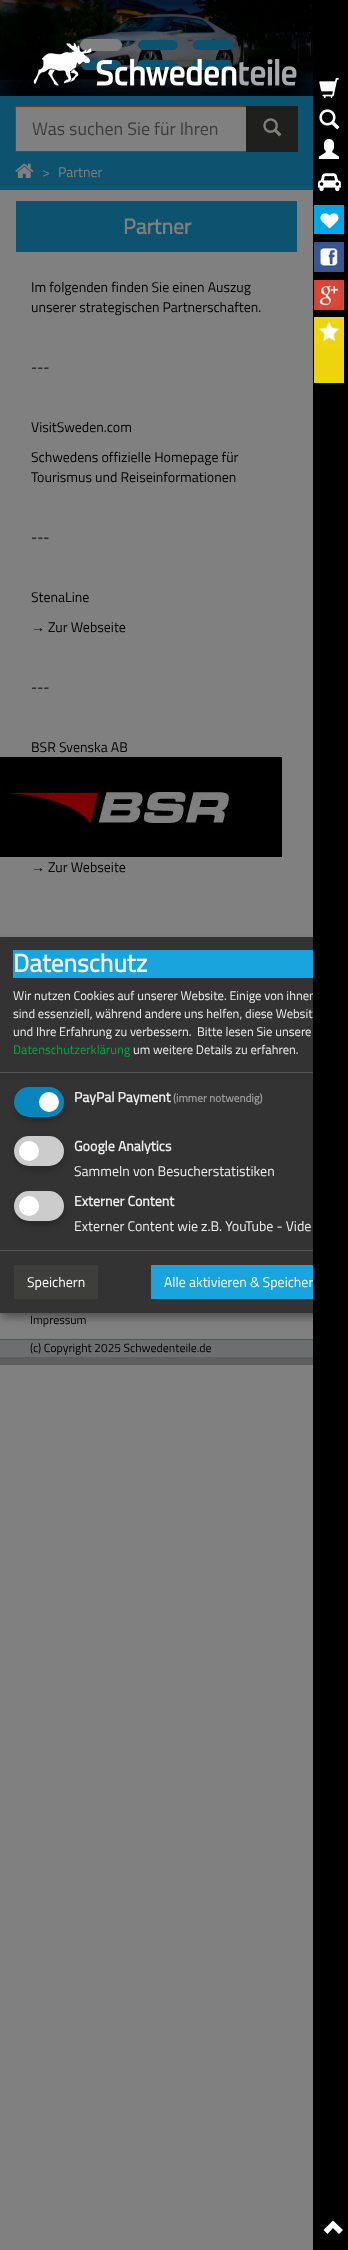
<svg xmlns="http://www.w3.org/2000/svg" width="348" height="2250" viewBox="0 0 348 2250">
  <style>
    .t1 { font: 12.6px Titillium Web; fill: #eee; }
    .t2 { font: 14px Titillium Web; fill: #fff; }
    .t3 { font: 18px Titillium Web; fill: #3c3c3c; }
    .t4 { font: 14px Titillium Web; fill: #808080; }
    .t5 { font: bold 21.5px Titillium Web; fill: #808080; }
    .t6 { font: 14px Titillium Web; fill: #000; }
    .t7 { font: 14px Liberation Sans; fill: #000; }
    .t8 { font: bold 25.25px Titillium Web; fill: #eee; }
    .t9 { font: 12.6px Titillium Web; fill: #00aa3e; }
    .t10 { font: bold 14px Titillium Web; fill: #eee; }
    .t11 { font: bold 11.25px Titillium Web; fill: #999; }
    .t12 { font: 14px Titillium Web; fill: #eee; }
    .t13 { font: 11.9px Titillium Web; fill: #000; }
  </style>
  <rect width="100%" height="100%" fill="#808080"/>
  <image x="0" y="0" width="313" height="96" href="images/1.png"/>
  <rect x="80.5" y="39.5" width="41" height="11" rx="5.5" fill="#808080" stroke="#808080"/>
  <rect x="138.5" y="40.5" width="39" height="9" rx="4.5" fill="#0d526f" stroke="#0d526f"/>
  <rect x="193.5" y="40.5" width="39" height="9" rx="4.5" fill="#0d526f" stroke="#0d526f"/>
  <rect x="81.5" y="60.5" width="39" height="9" rx="4.5" fill="#0d526f" stroke="#0d526f"/>
  <rect x="137.5" y="60.5" width="39" height="9" rx="4.5" fill="#0d526f" stroke="#0d526f"/>
  <rect x="192.5" y="60.5" width="39" height="9" rx="4.5" fill="#0d526f" stroke="#0d526f"/>
  <image x="33" y="43" width="264" height="43" href="images/2.png"/>
  <rect x="5" y="942" width="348" height="376" fill="#00000030" filter="blur(5px)"/>
  <rect x="0" y="941" width="348" height="376" fill="#00000033" filter="blur(3px)"/>
  <rect x="0" y="937" width="313" height="376" fill="#333"/>
  <text x="13" y="1000" class="t1">Wir nutzen Cookies auf unserer Website. Einige von ihnen</text>
  <rect x="151" y="1265" width="162" height="34" fill="#19a4de"/>
  <text x="164" y="1287" class="t2">Alle aktivieren &amp; Speicher</text>
  <rect x="313" y="0" width="35" height="2250" fill="#000"/>
  <image x="319" y="78" width="20" height="20" href="images/3.png"/>
  <image x="319" y="109" width="21" height="21" href="images/4.png"/>
  <image x="319" y="139" width="20" height="20" href="images/5.png"/>
  <image x="318" y="173" width="23" height="19" href="images/6.png"/>
  <image x="314" y="205" width="30" height="29" href="images/7.png"/>
  <image x="314" y="242" width="30" height="30" href="images/8.png"/>
  <image x="314" y="280" width="30" height="30" href="images/9.png"/>
  <image x="314" y="317" width="30" height="66" href="images/10.png"/>
  <path d="M323.5 2230L327.5 2234L333 2228L339 2234L343 2230L333 2220.5Z" fill="#fff"/>
  <rect x="0" y="96" width="313" height="94" fill="#0d526f"/>
  <rect x="16" y="108" width="230" height="43" fill="#808080"/>
  <rect x="16" y="107" width="230" height="1" fill="#767676"/>
  <rect x="15.5" y="106.5" width="231" height="45" fill="none" stroke="#7a3e1e"/>
  <text x="32" y="135" class="t3">Was suchen Sie für Ihren</text>
  <rect x="246" y="106" width="52" height="46" fill="#1f201d"/>
  <image x="263" y="118" width="19" height="19" href="images/11.png"/>
  <image x="15" y="163" width="19" height="15" href="images/12.png"/>
  <text x="42" y="177" class="t4">&gt;</text>
  <text x="58" y="177" class="t4">Partner</text>
  <rect x="16" y="201" width="281" height="51" fill="#0d526f"/>
  <text x="123" y="234" class="t5">Partner</text>
  <text x="31" y="292" class="t6">Im folgenden finden Sie einen Auszug</text>
  <text x="31" y="312" class="t6">unserer strategischen Partnerschaften.</text>
  <text x="31" y="372" class="t6">---</text>
  <text x="31" y="432" class="t6">VisitSweden.com</text>
  <text x="31" y="462" class="t6">Schwedens offizielle Homepage für</text>
  <text x="31" y="482" class="t6">Tourismus und Reiseinformationen</text>
  <text x="31" y="542" class="t6">---</text>
  <text x="31" y="602" class="t6">StenaLine</text>
  <text x="31" y="632" class="t7">→</text>
  <text x="48" y="632" class="t6">Zur Webseite</text>
  <text x="31" y="692" class="t6">---</text>
  <text x="31" y="752" class="t6">BSR Svenska AB</text>
  <image x="0" y="757" width="282" height="100" href="images/13.png"/>
  <text x="31" y="872" class="t7">→</text>
  <text x="48" y="872" class="t6">Zur Webseite</text>
  <rect x="0" y="1072" width="313" height="1" fill="#555"/>
  <rect x="13" y="950" width="300" height="28" fill="#19a4de"/>
  <text x="13" y="972" class="t8">Datenschutz</text>
  <text x="13" y="1018" class="t1">sind essenziell, während andere uns helfen, diese Websit</text>
  <text x="13" y="1036" class="t1" xml:space="preserve">und Ihre Erfahrung zu verbessern.  Bitte lesen Sie unsere</text>
  <text x="13" y="1054" class="t9">Datenschutzerklärung</text>
  <text x="133" y="1054" class="t1">um weitere Details zu erfahren.</text>
  <rect x="14" y="1091" width="50" height="30" rx="15" fill="#00000033" filter="blur(3px)"/>
  <rect x="14" y="1087" width="50" height="30" rx="15" fill="#0885ba"/>
  <circle cx="49" cy="1102" r="10" fill="#fff"/>
  <text x="74" y="1102" class="t10">PayPal Payment</text>
  <text x="173" y="1102" class="t11">(immer notwendig)</text>
  <rect x="14" y="1140" width="50" height="30" rx="15" fill="#00000033" filter="blur(3px)"/>
  <rect x="14" y="1136" width="50" height="30" rx="15" fill="#ccc"/>
  <circle cx="29" cy="1151" r="10" fill="#fff"/>
  <text x="74" y="1151" class="t10">Google Analytics</text>
  <text x="74" y="1176" class="t12">Sammeln von Besucherstatistiken</text>
  <rect x="14" y="1195" width="50" height="30" rx="15" fill="#00000033" filter="blur(3px)"/>
  <rect x="14" y="1191" width="50" height="30" rx="15" fill="#ccc"/>
  <circle cx="29" cy="1206" r="10" fill="#fff"/>
  <text x="74" y="1206" class="t10">Externer Content</text>
  <text x="74" y="1231" class="t12">Externer Content wie z.B. YouTube - Vide</text>
  <rect x="0" y="1250" width="313" height="1" fill="#555"/>
  <rect x="14" y="1265" width="84" height="34" fill="#3e3f3a"/>
  <text x="27" y="1287" class="t2">Speichern</text>
  <text x="30" y="1324" class="t13">Impressum</text>
  <rect x="0" y="1340" width="313" height="17" fill="#6c6f6f"/>
  <rect x="0" y="1339" width="313" height="1" fill="#505258"/>
  <rect x="0" y="1357" width="313" height="8" fill="#5f5f5f"/>
  <text x="30" y="1352" class="t13">(c) Copyright 2025 Schwedenteile.de</text>
</svg>
